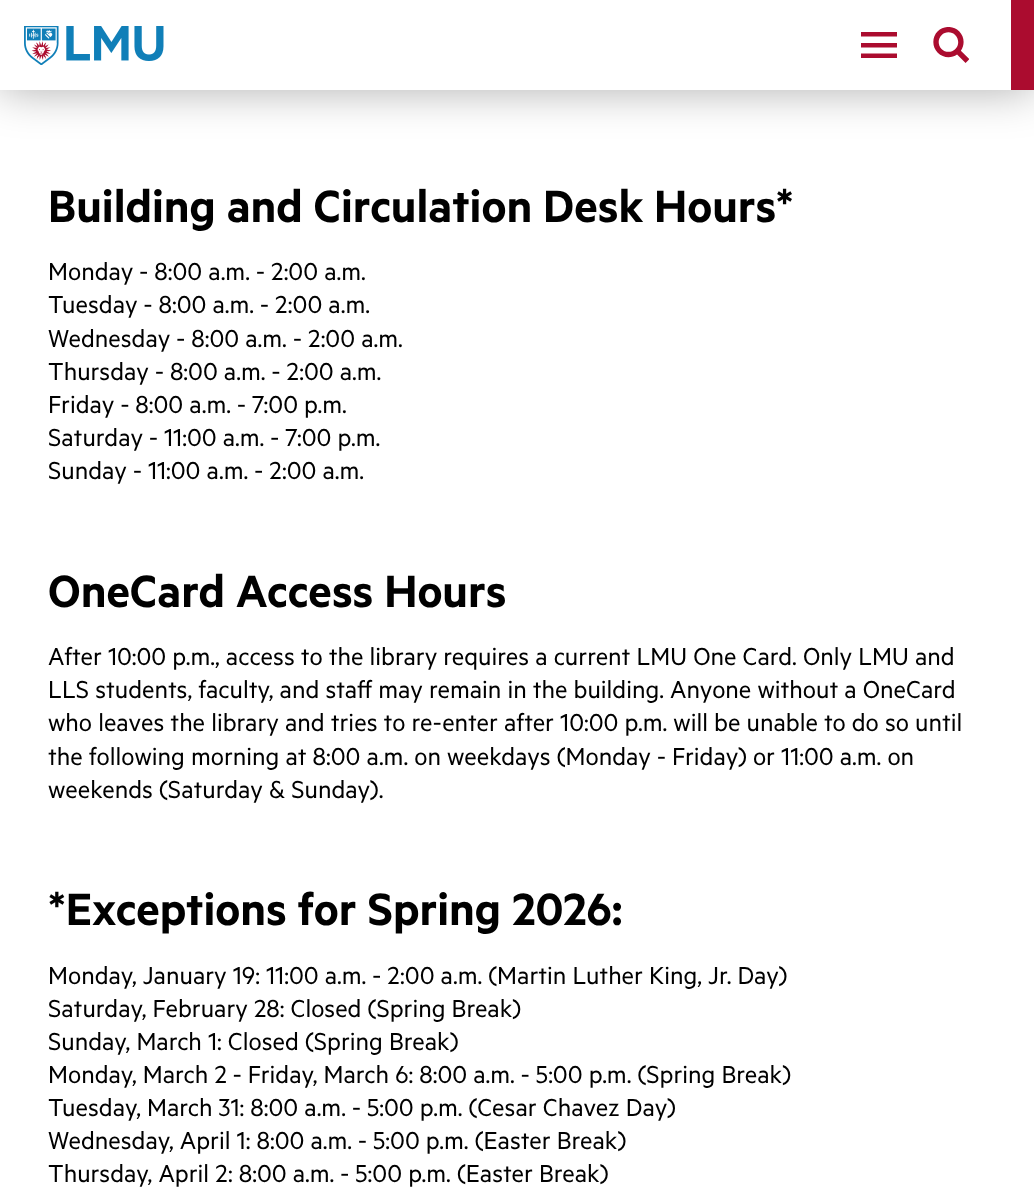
<svg xmlns="http://www.w3.org/2000/svg" width="1034" height="1194" viewBox="0 0 1034 1194">
  <style>
    .t1 { font: 600 51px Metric; fill: #000; }
    .t2 { font: 27.6px Metric; fill: #000; }
  </style>
  <rect width="100%" height="100%" fill="#fff"/>
  <rect x="0" y="0" width="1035" height="90" fill="#00000052" filter="blur(22.5px)"/>
  <rect x="0" y="0" width="1011" height="90" fill="#fff"/>
  <image x="24" y="26" width="140" height="39" href="images/1.png"/>
  <rect x="1011" y="0" width="23" height="90" fill="#ab0c2f"/>
  <image x="861" y="32" width="36" height="26" href="images/2.png"/>
  <image x="933" y="27" width="36" height="36" href="images/3.png"/>
  <text x="48" y="222" class="t1">Building and Circulation Desk Hours*</text>
  <text x="48" y="280" class="t2">Monday - 8:00 a.m. - 2:00 a.m.</text>
  <text x="48" y="313" class="t2">Tuesday - 8:00 a.m. - 2:00 a.m.</text>
  <text x="48" y="347" class="t2">Wednesday - 8:00 a.m. - 2:00 a.m.</text>
  <text x="48" y="380" class="t2">Thursday - 8:00 a.m. - 2:00 a.m.</text>
  <text x="48" y="413" class="t2">Friday - 8:00 a.m. - 7:00 p.m.</text>
  <text x="48" y="446" class="t2">Saturday - 11:00 a.m. - 7:00 p.m.</text>
  <text x="48" y="479" class="t2">Sunday - 11:00 a.m. - 2:00 a.m.</text>
  <text x="48" y="607" class="t1">OneCard Access Hours</text>
  <text x="48" y="665" class="t2">After 10:00 p.m., access to the library requires a current LMU One Card. Only LMU and</text>
  <text x="48" y="698" class="t2">LLS students, faculty, and staff may remain in the building. Anyone without a OneCard</text>
  <text x="48" y="731" class="t2">who leaves the library and tries to re-enter after 10:00 p.m. will be unable to do so until</text>
  <text x="48" y="765" class="t2">the following morning at 8:00 a.m. on weekdays (Monday - Friday) or 11:00 a.m. on</text>
  <text x="48" y="798" class="t2">weekends (Saturday &amp; Sunday).</text>
  <text x="48" y="925" class="t1">*Exceptions for Spring 2026:</text>
  <text x="48" y="984" class="t2">Monday, January 19: 11:00 a.m. - 2:00 a.m. (Martin Luther King, Jr. Day)</text>
  <text x="48" y="1017" class="t2">Saturday, February 28: Closed (Spring Break)</text>
  <text x="48" y="1050" class="t2">Sunday, March 1: Closed (Spring Break)</text>
  <text x="48" y="1083" class="t2">Monday, March 2 - Friday, March 6: 8:00 a.m. - 5:00 p.m. (Spring Break)</text>
  <text x="48" y="1116" class="t2">Tuesday, March 31: 8:00 a.m. - 5:00 p.m. (Cesar Chavez Day)</text>
  <text x="48" y="1149" class="t2">Wednesday, April 1: 8:00 a.m. - 5:00 p.m. (Easter Break)</text>
  <text x="48" y="1182" class="t2">Thursday, April 2: 8:00 a.m. - 5:00 p.m. (Easter Break)</text>
</svg>
